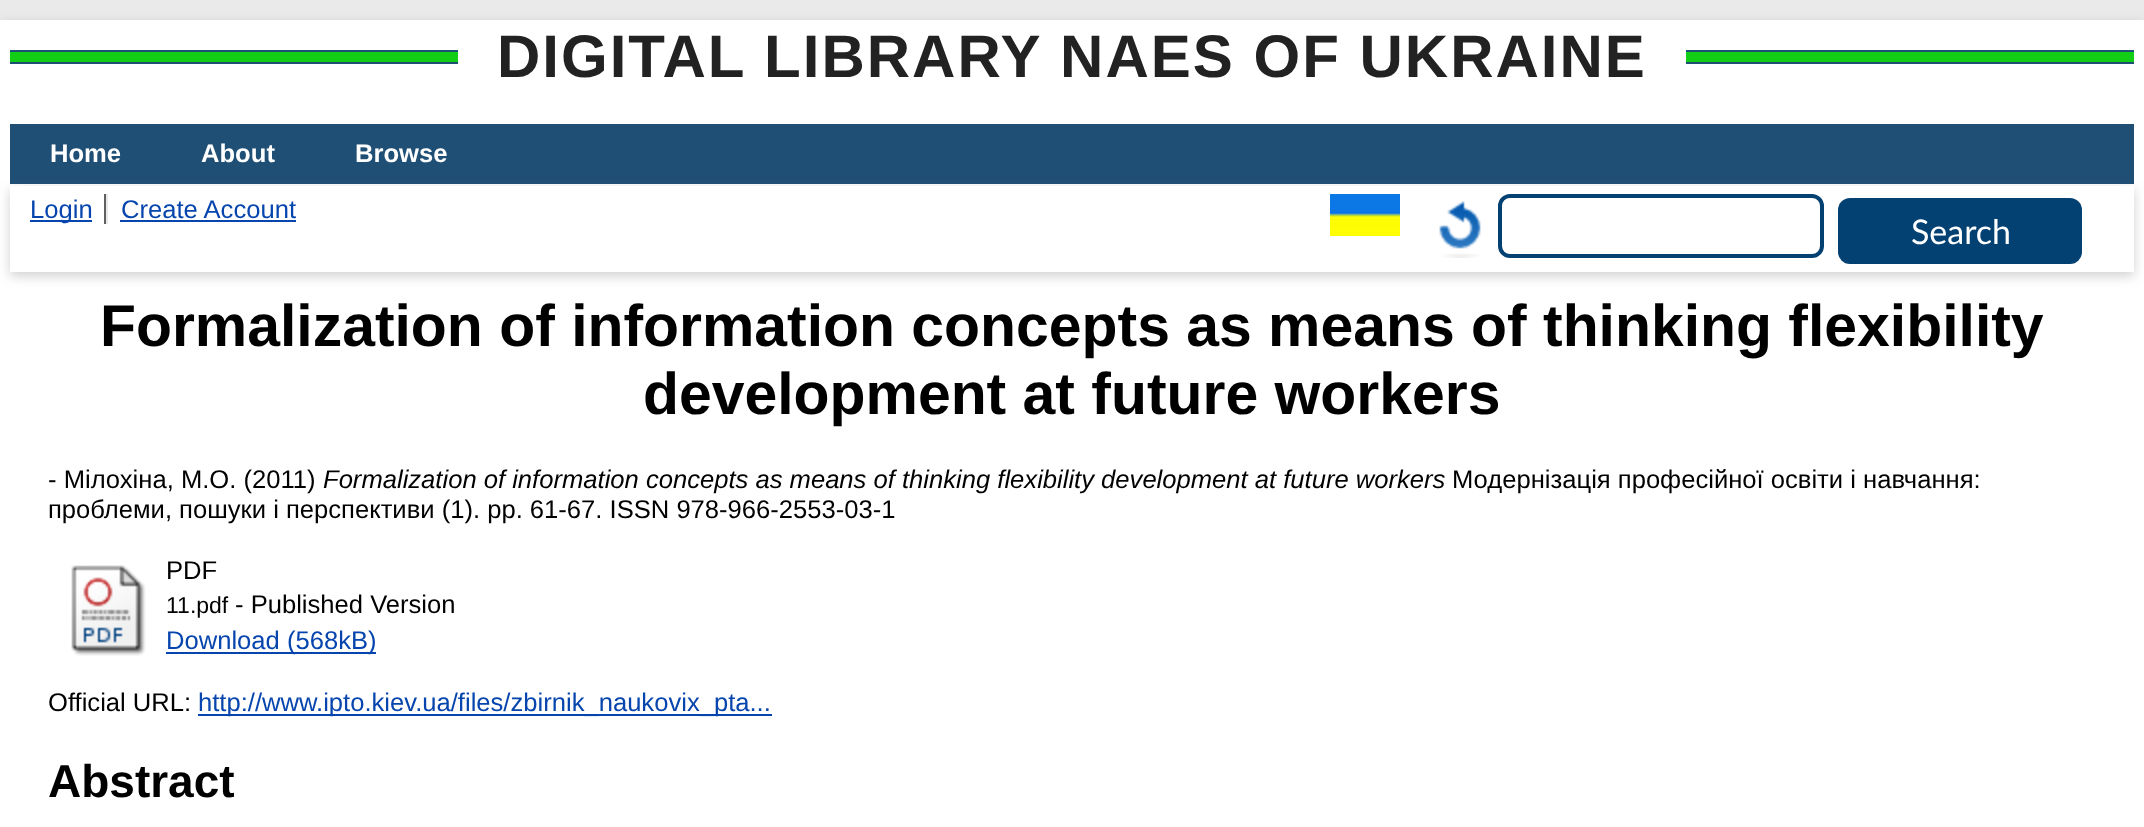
<svg xmlns="http://www.w3.org/2000/svg" width="2144" height="827" viewBox="0 0 2144 827">
  <style>
    .t1 { font: bold 60px Liberation Sans; letter-spacing: 2px; fill: #222; }
    .t2 { font: bold 25.6px Liberation Sans; fill: #fff; }
    .t3 { font: 25.6px Liberation Sans; fill: #0645ad; }
    .t4 { font: 34px Lato; fill: #fff; }
    .t5 { font: bold 58.9px Liberation Sans; fill: #000; }
    .t6 { font: 25.6px Liberation Sans; fill: #000; }
    .t7 { font: italic 25.6px Liberation Sans; fill: #000; }
    .t8 { font: 23px Liberation Sans; fill: #000; }
    .t9 { font: bold 46px Liberation Sans; fill: #000; }
  </style>
  <rect width="100%" height="100%" fill="#eaeaea"/>
  <rect x="0" y="24" width="2144" height="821" fill="#6464644d" filter="blur(6px)"/>
  <rect x="0" y="20" width="2144" height="807" fill="#fff"/>
  <rect x="10" y="52" width="448" height="10" fill="#12ce15"/>
  <rect x="10" y="50" width="448" height="2" fill="#204f76"/>
  <rect x="10" y="62" width="448" height="2" fill="#204f76"/>
  <text x="497" y="77" class="t1">DIGITAL LIBRARY NAES OF UKRAINE</text>
  <rect x="1686" y="52" width="448" height="10" fill="#12ce15"/>
  <rect x="1686" y="50" width="448" height="2" fill="#204f76"/>
  <rect x="1686" y="62" width="448" height="2" fill="#204f76"/>
  <rect x="10" y="124" width="2124" height="60" fill="#204f76"/>
  <text x="50" y="162" class="t2">Home</text>
  <text x="201" y="162" class="t2">About</text>
  <text x="355" y="162" class="t2">Browse</text>
  <rect x="10" y="190" width="2124" height="86" fill="#6464644d" filter="blur(6px)"/>
  <rect x="10" y="186" width="2124" height="86" fill="#fff"/>
  <rect x="104" y="194" width="2" height="30" fill="#606060"/>
  <rect x="30" y="220" width="62" height="2" fill="#0645ad"/>
  <text x="30" y="218" class="t3">Login</text>
  <rect x="106" y="194" width="2" height="30" fill="#e8e8e8"/>
  <text x="121" y="218" class="t3">Create Account</text>
  <rect x="120" y="220" width="176" height="2" fill="#0645ad"/>
  <image x="1330" y="194" width="70" height="42" href="images/1.png"/>
  <image x="1439" y="201" width="42" height="57" href="images/2.png"/>
  <rect x="1500" y="196" width="322" height="60" rx="10" fill="none" stroke="#044173" stroke-width="4"/>
  <rect x="1838" y="198" width="244" height="66" rx="12" fill="#044173"/>
  <text x="1911" y="244" class="t4">Search</text>
  <text x="100" y="346" class="t5">Formalization of information concepts as means of thinking flexibility</text>
  <text x="643" y="414" class="t5">development at future workers</text>
  <text x="48" y="488" class="t6">- Мілохіна, М.О. (2011)</text>
  <text x="323" y="488" class="t7">Formalization of information concepts as means of thinking flexibility development at future workers</text>
  <text x="1452" y="488" class="t6">Модернізація професійної освіти і навчання:</text>
  <text x="48" y="518" class="t6">проблеми, пошуки і перспективи (1). pp. 61-67. ISSN 978-966-2553-03-1</text>
  <image x="71" y="565" width="75" height="91" href="images/3.png"/>
  <text x="166" y="579" class="t6">PDF</text>
  <text x="166" y="613" class="t8">11.pdf</text>
  <text x="235" y="613" class="t6">- Published Version</text>
  <rect x="166" y="652" width="210" height="2" fill="#0645ad"/>
  <text x="166" y="649" class="t3">Download (568kB)</text>
  <text x="48" y="711" class="t6">Official URL:</text>
  <rect x="198" y="714" width="574" height="2" fill="#0645ad"/>
  <text x="198" y="711" class="t3">http://www.ipto.kiev.ua/files/zbirnik_naukovix_pta...</text>
  <text x="48" y="797" class="t9">Abstract</text>
</svg>
